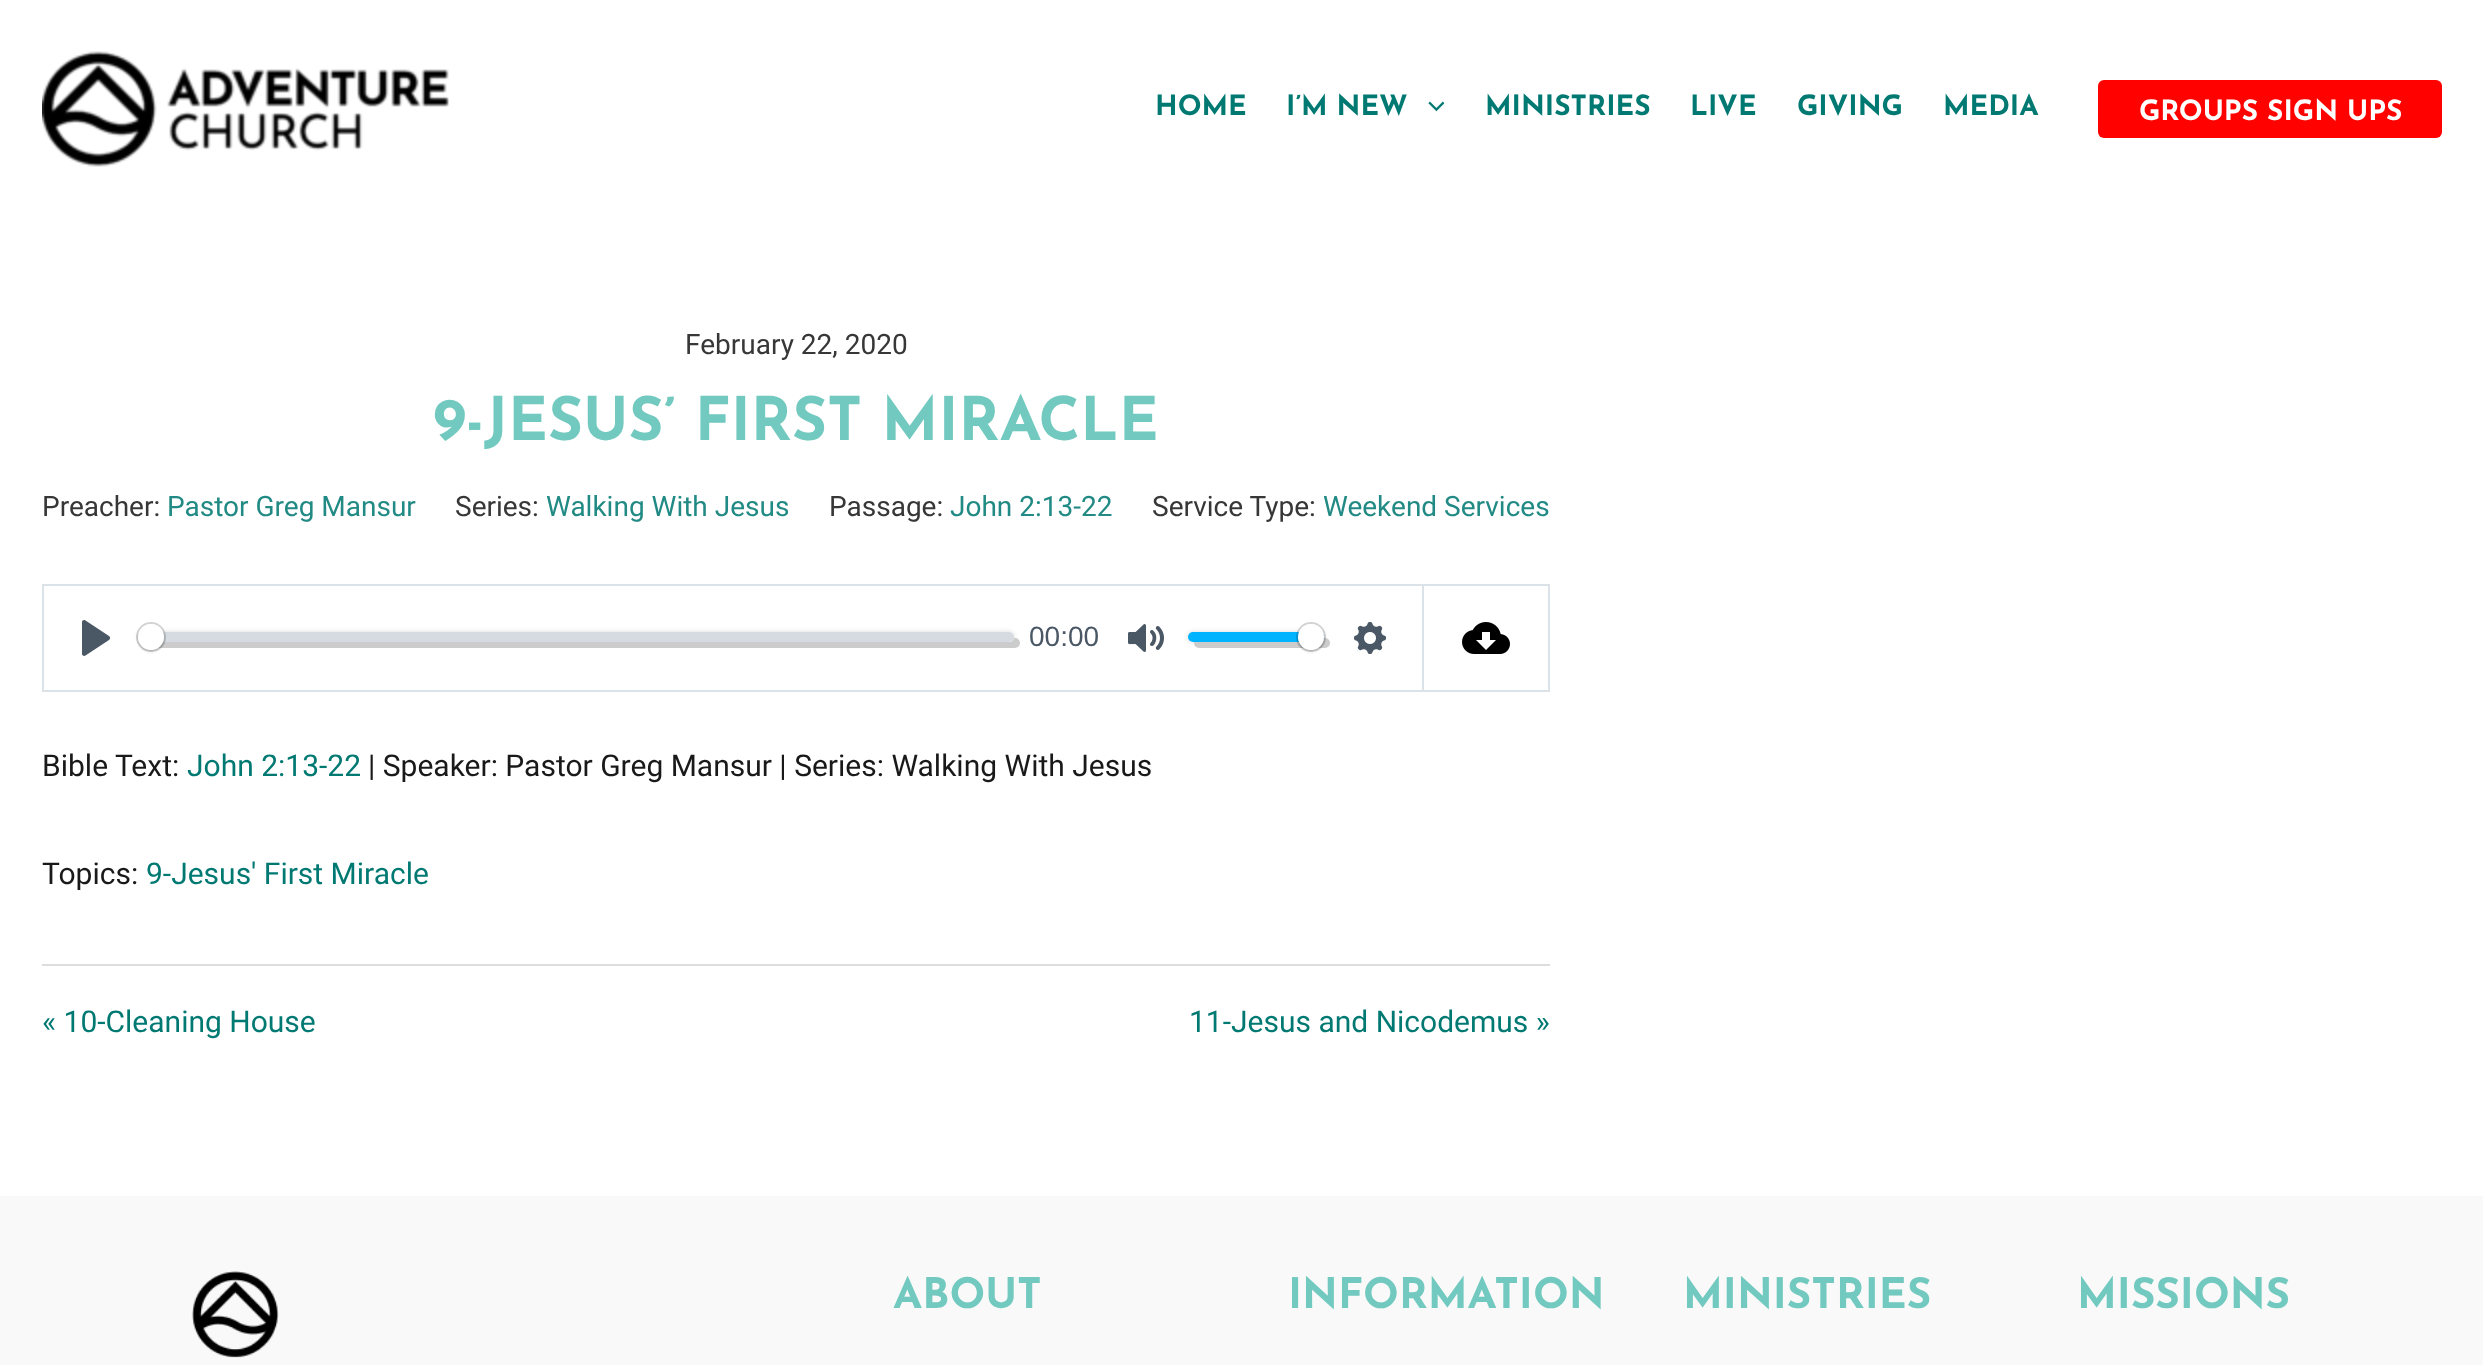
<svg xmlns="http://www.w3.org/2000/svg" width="2483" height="1365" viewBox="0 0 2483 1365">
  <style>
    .t1 { font: bold 28px Josefin Sans; fill: #007972; }
    .t2 { font: bold 28px Josefin Sans; fill: #fefefe; }
    .t3 { font: 28px Roboto; fill: #373737; }
    .t4 { font: bold 60px Josefin Sans; fill: #71c9bf; }
    .t5 { font: 28px Roboto; fill: #218a84; }
    .t6 { font: 28px Liberation Sans; fill: #4a5764; }
    .t7 { font: 30px Roboto; fill: #191919; }
    .t8 { font: 30px Roboto; fill: #007972; }
    .t9 { font: bold 42px Josefin Sans; fill: #71c9bf; }
  </style>
  <defs>
    <clipPath id="clip1"><path d="M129 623H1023V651H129ZM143 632H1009C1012 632 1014 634 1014 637C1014 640 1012 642 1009 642H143C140 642 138 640 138 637C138 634 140 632 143 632Z" clip-rule="evenodd"/></clipPath>
    <clipPath id="clip2"><path d="M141 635H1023V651H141ZM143 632H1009C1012 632 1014 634 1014 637C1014 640 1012 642 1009 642H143C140 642 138 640 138 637C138 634 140 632 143 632Z" clip-rule="evenodd"/></clipPath>
  </defs>
  <rect width="100%" height="100%" fill="#fff"/>
  <image x="42" y="51" width="407" height="116" href="images/1.png"/>
  <text x="1155" y="115" class="t1">HOME</text>
  <text x="1286" y="115" class="t1">I’M NEW</text>
  <image x="1428" y="101" width="16" height="11" href="images/2.png"/>
  <text x="1485" y="115" class="t1">MINISTRIES</text>
  <text x="1690" y="115" class="t1">LIVE</text>
  <text x="1797" y="115" class="t1">GIVING</text>
  <text x="1943" y="115" class="t1">MEDIA</text>
  <rect x="2098" y="80" width="344" height="58" rx="6" fill="#ff0200"/>
  <text x="2139" y="120" class="t2">GROUPS SIGN UPS</text>
  <text x="685" y="354" class="t3">February 22, 2020</text>
  <text x="433" y="440" class="t4">9-JESUS’ FIRST MIRACLE</text>
  <text x="42" y="516" class="t3">Preacher:</text>
  <text x="167" y="516" class="t5">Pastor Greg Mansur</text>
  <text x="455" y="516" class="t3">Series:</text>
  <text x="546" y="516" class="t5">Walking With Jesus</text>
  <text x="829" y="516" class="t3">Passage:</text>
  <text x="950" y="516" class="t5">John 2:13-22</text>
  <text x="1152" y="516" class="t3">Service Type:</text>
  <text x="1323" y="516" class="t5">Weekend Services</text>
  <rect x="43" y="585" width="1380" height="106" fill="none" stroke="#dbe3e8" stroke-width="2"/>
  <path d="M109 636L85.5 620.5C84 619.5 82 620.5 82 622V654C82 655.5 84 656.5 85.5 655.5L109 640C110.5 639 110.5 637 109 636Z" fill="#4a5764"/>
  <g clip-path="url(#clip1)">
    <rect x="138" y="632" width="876" height="10" rx="5" fill="#d9d9d9" filter="blur(2.5px)"/>
  </g>
  <g clip-path="url(#clip2)">
    <rect x="144" y="638" width="876" height="10" rx="5" fill="#ccc" filter="blur(0.5px)"/>
  </g>
  <rect x="138" y="632" width="876" height="10" rx="5" fill="#c1c9d1a8"/>
  <circle cx="151" cy="637" r="14" fill="none" stroke="#23292f33" stroke-width="2"/>
  <rect x="138" y="626" width="26" height="26" rx="13" fill="#00000026" filter="blur(1px)"/>
  <circle cx="151" cy="637" r="13" fill="#fff"/>
  <text x="1029" y="646" class="t6">00:00</text>
  <image x="1128" y="624" width="36" height="28" href="images/3.png"/>
  <rect x="1188" y="632" width="136" height="10" rx="5" fill="#d9d9d9" filter="blur(2.5px)"/>
  <rect x="1194" y="638" width="136" height="10" rx="5" fill="#ccc" filter="blur(0.5px)"/>
  <rect x="1188" y="632" width="136" height="10" rx="5" fill="#00b3ff"/>
  <circle cx="1311" cy="637" r="14" fill="none" stroke="#23292f33" stroke-width="2"/>
  <rect x="1298" y="626" width="26" height="26" rx="13" fill="#00000026" filter="blur(1px)"/>
  <circle cx="1311" cy="637" r="13" fill="#fff"/>
  <image x="1354" y="622" width="32" height="32" href="images/4.png"/>
  <rect x="1424" y="584" width="126" height="2" fill="#dbe3e8"/>
  <rect x="1548" y="584" width="2" height="108" fill="#dbe3e8"/>
  <rect x="1424" y="690" width="126" height="2" fill="#dbe3e8"/>
  <image x="1462" y="622" width="48" height="32" href="images/5.png"/>
  <text x="42" y="776" class="t7">Bible Text:</text>
  <text x="187" y="776" class="t8">John 2:13-22</text>
  <text x="368" y="776" class="t7">| Speaker: Pastor Greg Mansur | Series: Walking With Jesus</text>
  <text x="42" y="884" class="t7">Topics:</text>
  <text x="146" y="884" class="t8">9-Jesus' First Miracle</text>
  <rect x="42" y="964" width="1508" height="2" fill="#ddd"/>
  <text x="42" y="1032" class="t8">« 10-Cleaning House</text>
  <text x="1189" y="1032" class="t8">11-Jesus and Nicodemus »</text>
  <rect x="0" y="1196" width="2483" height="169" fill="#f9f9f9"/>
  <image x="191" y="1271" width="88" height="87" href="images/6.png"/>
  <text x="893" y="1308" class="t9">ABOUT</text>
  <text x="1288" y="1308" class="t9">INFORMATION</text>
  <text x="1683" y="1308" class="t9">MINISTRIES</text>
  <text x="2077" y="1308" class="t9">MISSIONS</text>
</svg>
